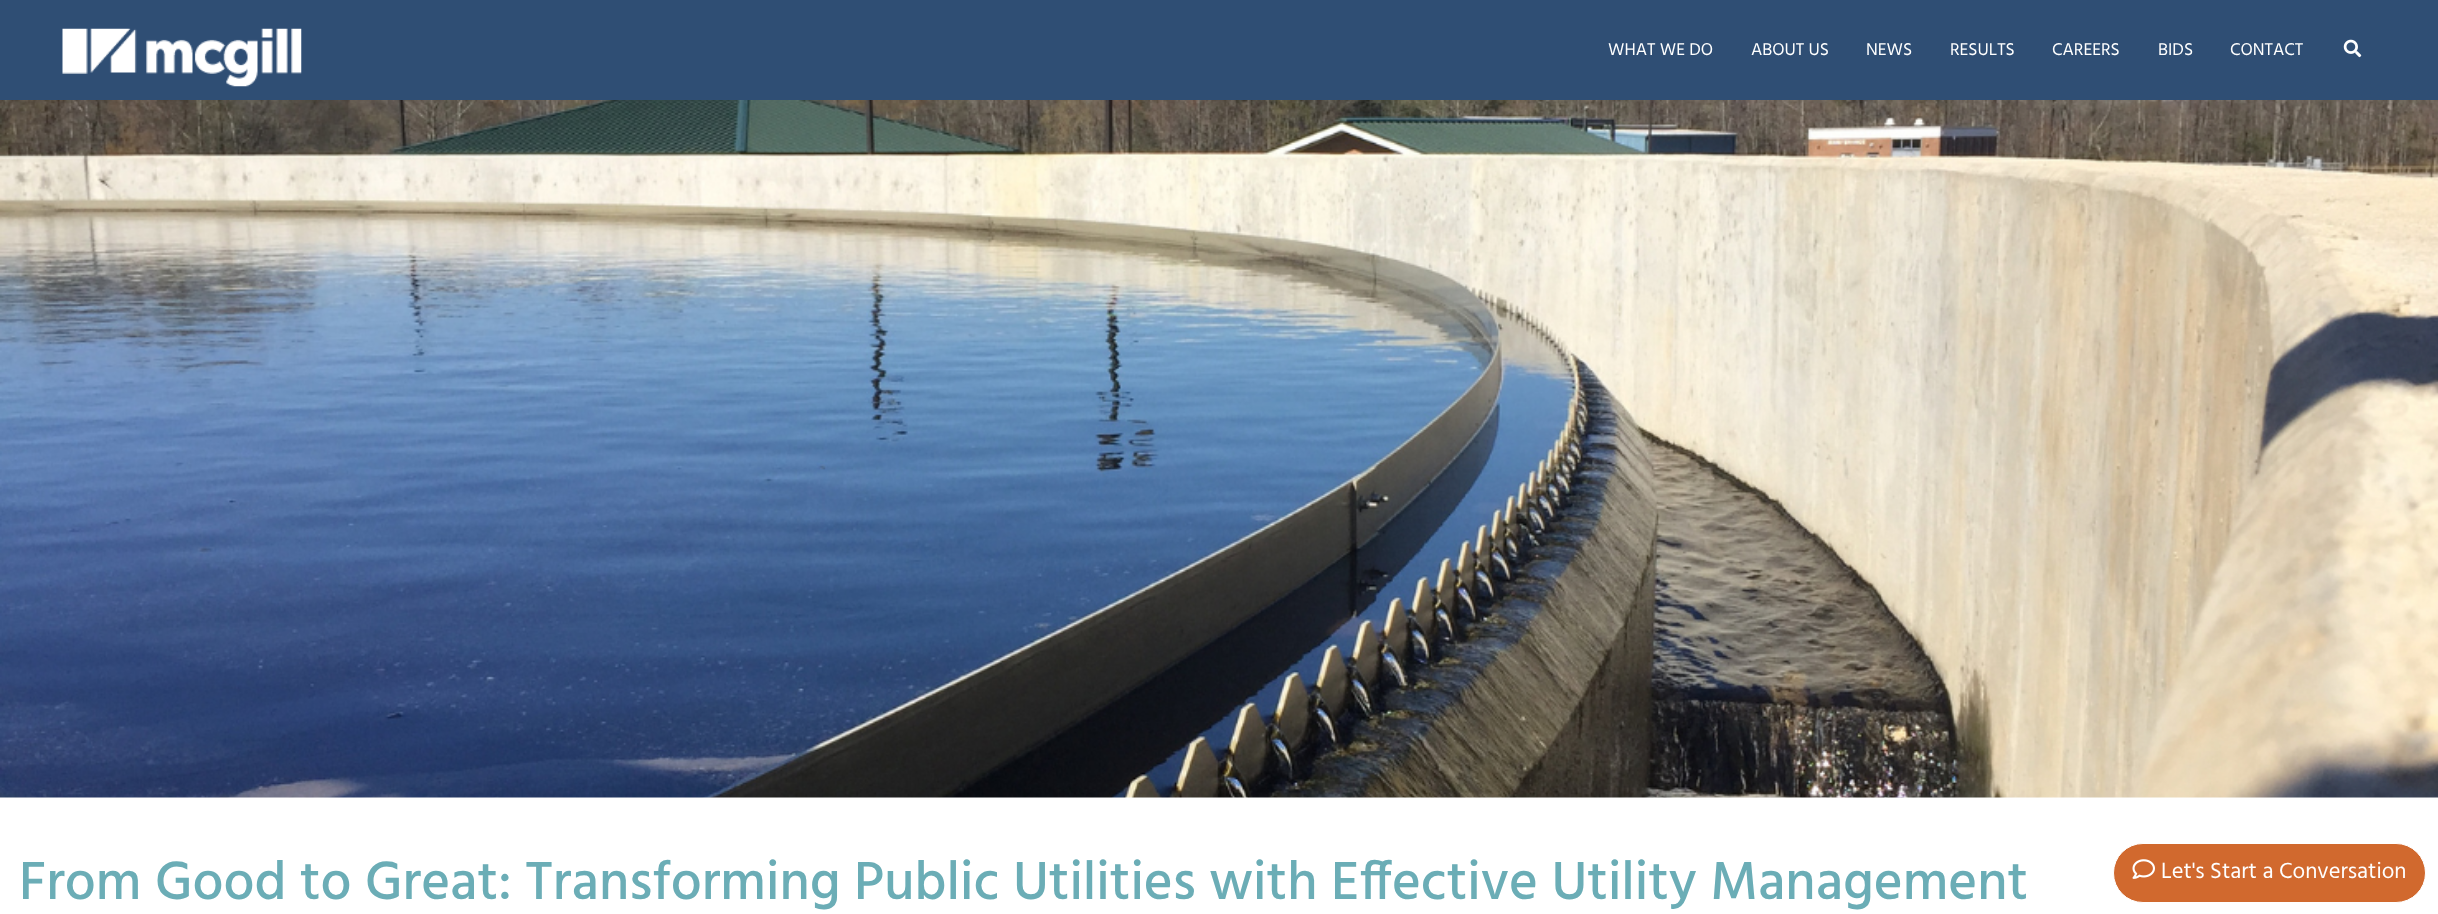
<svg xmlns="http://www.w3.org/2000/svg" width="2438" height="914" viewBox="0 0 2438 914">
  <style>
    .t1 { font: 17.5px Hind; fill: #fff; }
    .t2 { font: 500 55px Hind; fill: #6badb6; }
    .t3 { font: 22.5px Hind; fill: #fff; }
  </style>
  <rect width="100%" height="100%" fill="#fff"/>
  <rect x="0" y="0" width="2438" height="100" fill="#2f4e74"/>
  <image x="62" y="28" width="240" height="59" href="images/1.png"/>
  <text x="1608" y="55" class="t1">WHAT WE DO</text>
  <text x="1751" y="55" class="t1">ABOUT US</text>
  <text x="1866" y="55" class="t1">NEWS</text>
  <text x="1950" y="55" class="t1">RESULTS</text>
  <text x="2052" y="55" class="t1">CAREERS</text>
  <text x="2158" y="55" class="t1">BIDS</text>
  <text x="2230" y="55" class="t1">CONTACT</text>
  <image x="2343" y="39" width="19" height="19" href="images/2.png"/>
  <image x="0" y="100" width="2438" height="698" href="images/3.png"/>
  <text x="19" y="899" class="t2">From Good to Great: Transforming Public Utilities with Effective Utility Management</text>
  <rect x="2113.5" y="843.5" width="312" height="59" rx="29.5" fill="#d1692e" stroke="#fff"/>
  <image x="2132" y="859" width="23" height="20" href="images/4.png"/>
  <text x="2161" y="878" class="t3">Let's Start a Conversation</text>
</svg>
